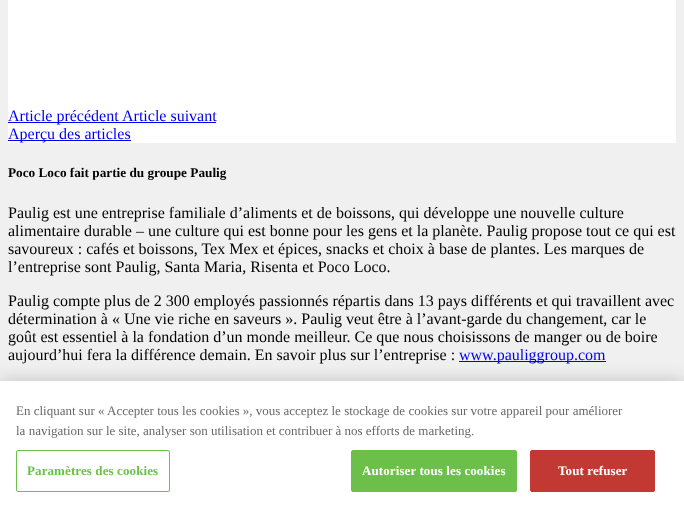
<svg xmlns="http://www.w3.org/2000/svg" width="684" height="512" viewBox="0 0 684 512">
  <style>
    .t1 { font: 16px Liberation Serif; fill: #00e; }
    .t2 { font: bold 13.25px Liberation Serif; fill: #000; }
    .t3 { font: 16px Liberation Serif; fill: #000; }
    .t4 { font: 13px Liberation Serif; fill: #696969; }
    .t5 { font: bold 13px Liberation Serif; letter-spacing: 0.1px; fill: #6cc04a; }
    .t6 { font: bold 13px Liberation Serif; letter-spacing: 0.1px; fill: #fff; }
  </style>
  <rect width="100%" height="100%" fill="#f0f0f0"/>
  <rect x="8" y="0" width="668" height="143" fill="#fff"/>
  <rect x="8" y="122" width="208" height="1" fill="#00e"/>
  <text x="8" y="121" class="t1">Article précédent</text>
  <text x="122" y="121" class="t1">Article suivant</text>
  <rect x="8" y="140" width="123" height="1" fill="#00e"/>
  <text x="8" y="139" class="t1">Aperçu des articles</text>
  <text x="8" y="177" class="t2">Poco Loco fait partie du groupe Paulig</text>
  <text x="8" y="218" class="t3">Paulig est une entreprise familiale d’aliments et de boissons, qui développe une nouvelle culture</text>
  <text x="8" y="236" class="t3">alimentaire durable – une culture qui est bonne pour les gens et la planète. Paulig propose tout ce qui est</text>
  <text x="8" y="254" class="t3">savoureux : cafés et boissons, Tex Mex et épices, snacks et choix à base de plantes. Les marques de</text>
  <text x="8" y="272" class="t3">l’entreprise sont Paulig, Santa Maria, Risenta et Poco Loco.</text>
  <text x="8" y="306" class="t3">Paulig compte plus de 2 300 employés passionnés répartis dans 13 pays différents et qui travaillent avec</text>
  <text x="8" y="324" class="t3">détermination à « Une vie riche en saveurs ». Paulig veut être à l’avant-garde du changement, car le</text>
  <text x="8" y="342" class="t3">goût est essentiel à la fondation d’un monde meilleur. Ce que nous choisissons de manger ou de boire</text>
  <text x="8" y="360" class="t3">aujourd’hui fera la différence demain. En savoir plus sur l’entreprise :</text>
  <rect x="459" y="361" width="147" height="1" fill="#00e"/>
  <text x="459" y="360" class="t1">www.pauliggroup.com</text>
  <rect x="0" y="381" width="684" height="131" fill="#00000033" filter="blur(9px)"/>
  <rect x="0" y="381" width="684" height="131" fill="#fff"/>
  <text x="16" y="415" class="t4">En cliquant sur « Accepter tous les cookies », vous acceptez le stockage de cookies sur votre appareil pour améliorer</text>
  <text x="16" y="435" class="t4">la navigation sur le site, analyser son utilisation et contribuer à nos efforts de marketing.</text>
  <rect x="16.5" y="450.5" width="153" height="41" rx="1.5" fill="none" stroke="#6cc04a"/>
  <text x="27" y="475" class="t5">Paramètres des cookies</text>
  <rect x="351.5" y="450.5" width="165" height="41" rx="1.5" fill="#6cc04a" stroke="#6cc04a"/>
  <text x="362" y="475" class="t6">Autoriser tous les cookies</text>
  <rect x="530.5" y="450.5" width="124" height="41" rx="1.5" fill="#c23934" stroke="#c23934"/>
  <text x="558" y="475" class="t6">Tout refuser</text>
</svg>
